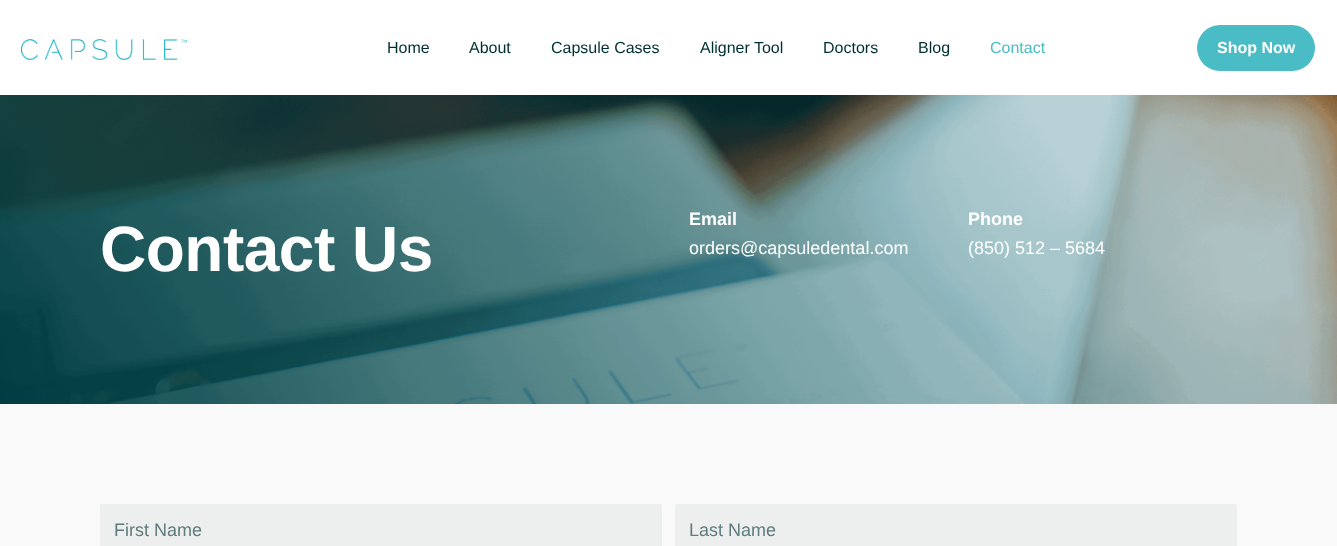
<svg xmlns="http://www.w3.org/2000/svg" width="1337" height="546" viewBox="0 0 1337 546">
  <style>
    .t1 { font: 16px Liberation Sans; fill: #002f33; }
    .t2 { font: 16px Liberation Sans; fill: #49bcc5; }
    .t3 { font: bold 16px Liberation Sans; fill: #fff; }
    .t4 { font: bold 64px Liberation Sans; letter-spacing: -0.5px; fill: #fff; }
    .t5 { font: bold 18px Liberation Sans; fill: #fff; }
    .t6 { font: 18px Liberation Sans; fill: #fff; }
    .t7 { font: 18px Liberation Sans; fill: #5f7c7e; }
  </style>
  <rect width="100%" height="100%" fill="#fff"/>
  <image x="21" y="39" width="166" height="21" href="images/1.png"/>
  <text x="387" y="53" class="t1">Home</text>
  <text x="469" y="53" class="t1">About</text>
  <text x="551" y="53" class="t1">Capsule Cases</text>
  <text x="700" y="53" class="t1">Aligner Tool</text>
  <text x="823" y="53" class="t1">Doctors</text>
  <text x="918" y="53" class="t1">Blog</text>
  <text x="990" y="53" class="t2">Contact</text>
  <rect x="1197" y="25" width="118" height="46" rx="23" fill="#49bcc5"/>
  <text x="1217" y="53" class="t3">Shop Now</text>
  <image x="0" y="95" width="1337" height="309" href="images/2.png"/>
  <text x="100" y="271" class="t4">Contact Us</text>
  <text x="689" y="225" class="t5">Email</text>
  <text x="689" y="254" class="t6">orders@capsuledental.com</text>
  <text x="968" y="225" class="t5">Phone</text>
  <text x="968" y="254" class="t6">(850) 512 – 5684</text>
  <rect x="0" y="404" width="1337" height="142" fill="#f9f9f9"/>
  <rect x="100" y="504" width="562" height="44" rx="2" fill="#edefef"/>
  <text x="114" y="536" class="t7">First Name</text>
  <rect x="675" y="504" width="562" height="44" rx="2" fill="#edefef"/>
  <text x="689" y="536" class="t7">Last Name</text>
</svg>
